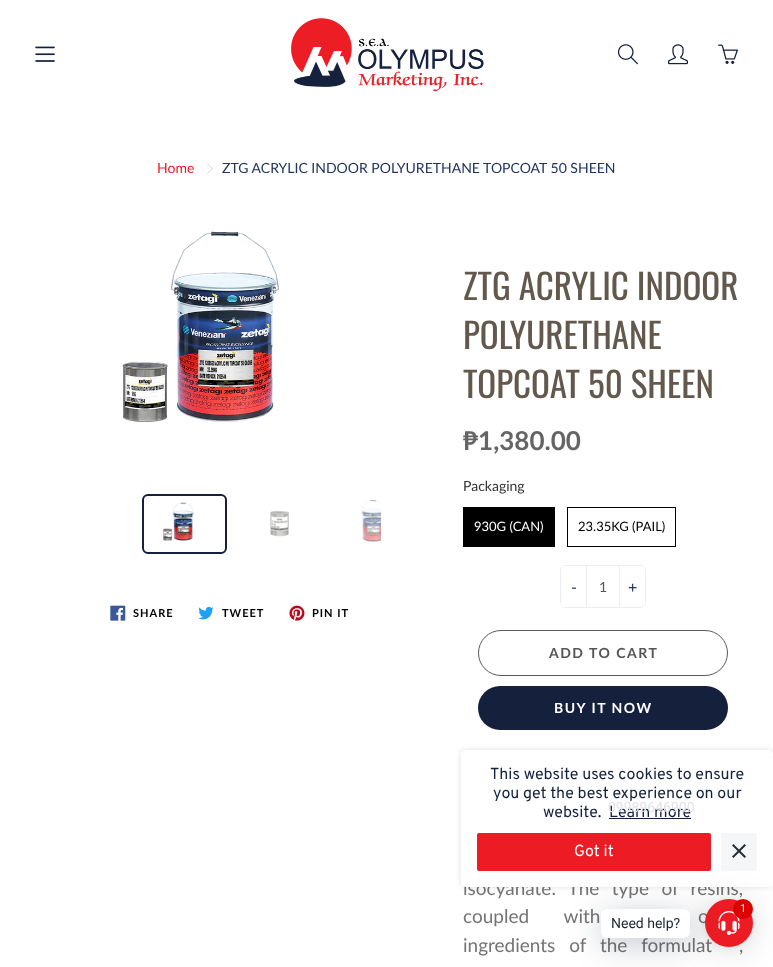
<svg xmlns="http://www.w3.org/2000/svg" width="773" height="967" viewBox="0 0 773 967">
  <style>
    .t1 { font: 14px Lato; fill: #ed1c24; }
    .t2 { font: 14px Lato; fill: #20325e; }
    .t3 { font: bold 11px Lato; letter-spacing: 1px; fill: #000; }
    .t4 { font: 35px Oswald; fill: #63584c; }
    .t5 { font: bold 26px Lato; fill: #666565; }
    .t6 { font: 14px Lato; fill: #333; }
    .t7 { font: 13px Lato; fill: #fff; }
    .t8 { font: 13px Lato; fill: #000; }
    .t9 { font: 16px Lato; fill: #20325e; }
    .t10 { font: 14px Lato; fill: #555; }
    .t11 { font: bold 14px Lato; letter-spacing: 1.5px; fill: #555; }
    .t12 { font: bold 14px Lato; letter-spacing: 1.5px; fill: #fff; }
    .t13 { font: 19px Lato; fill: #757474; }
    .t14 { font: 16px Overpass; fill: #15203c; }
    .t15 { font: 16px Overpass; fill: #fff; }
    .t16 { font: 14px Roboto; fill: #e2e3e7; }
    .t17 { font: 11px Roboto; fill: #fff; }
    .t18 { font: 14px Roboto; fill: #1e2433; }
  </style>
  <defs>
    <clipPath id="clip1"><path d="M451 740H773V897H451ZM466 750H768C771 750 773 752 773 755V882C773 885 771 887 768 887H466C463 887 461 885 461 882V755C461 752 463 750 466 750Z" clip-rule="evenodd"/></clipPath>
  </defs>
  <rect width="100%" height="100%" fill="#fff"/>
  <image x="291" y="18" width="193" height="74" href="images/1.png"/>
  <image x="35" y="46" width="20" height="16" href="images/2.png"/>
  <image x="618" y="44" width="20" height="21" href="images/3.png"/>
  <image x="668" y="44" width="20" height="21" href="images/4.png"/>
  <image x="718" y="44" width="20" height="20" href="images/5.png"/>
  <text x="157" y="173" class="t1">Home</text>
  <image x="207" y="163" width="6" height="11" href="images/6.png"/>
  <text x="222" y="173" class="t2">ZTG ACRYLIC INDOOR POLYURETHANE TOPCOAT 50 SHEEN</text>
  <image x="122" y="231" width="157" height="191" href="images/7.png"/>
  <rect x="143" y="495" width="83" height="58" rx="5" fill="none" stroke="#15203d" stroke-width="2"/>
  <image x="163" y="502" width="31" height="39" href="images/8.png"/>
  <image x="270" y="510" width="19" height="27" href="images/9.png"/>
  <image x="361" y="500" width="20" height="42" href="images/10.png"/>
  <image x="110" y="605" width="16" height="16" href="images/11.png"/>
  <text x="133" y="617" class="t3">SHARE</text>
  <image x="198" y="606" width="16" height="14" href="images/12.png"/>
  <text x="222" y="617" class="t3">TWEET</text>
  <image x="289" y="605" width="16" height="16" href="images/13.png"/>
  <text x="312" y="617" class="t3">PIN IT</text>
  <text x="463" y="300" class="t4">ZTG ACRYLIC INDOOR</text>
  <text x="463" y="349" class="t4">POLYURETHANE</text>
  <text x="463" y="398" class="t4">TOPCOAT 50 SHEEN</text>
  <text x="463" y="450" class="t5">₱1,380.00</text>
  <text x="463" y="491" class="t6">Packaging</text>
  <rect x="463.5" y="507.5" width="91" height="39" fill="none" stroke="#000"/>
  <rect x="464" y="508" width="90" height="38" fill="#000"/>
  <text x="474" y="531" class="t7">930G (CAN)</text>
  <rect x="567.5" y="507.5" width="108" height="39" fill="none" stroke="#000"/>
  <text x="578" y="531" class="t8">23.35KG (PAIL)</text>
  <rect x="560.5" y="565.5" width="85" height="42" rx="5.5" fill="none" stroke="#ededed"/>
  <path d="M566 566H586V607H566C563 607 561 605 561 602V571C561 568 563 566 566 566Z" fill="#fff"/>
  <text x="571" y="593" class="t9">-</text>
  <rect x="619" y="566" width="1" height="41" fill="#ededed"/>
  <rect x="586" y="566" width="1" height="41" fill="#ededed"/>
  <text x="599" y="592" class="t10">1</text>
  <path d="M620 566H640C643 566 645 568 645 571V602C645 605 643 607 640 607H620Z" fill="#fff"/>
  <text x="628" y="593" class="t9">+</text>
  <rect x="478.5" y="630.5" width="249" height="45" rx="22.5" fill="none" stroke="#595959"/>
  <text x="549" y="658" class="t11">ADD TO CART</text>
  <rect x="478" y="686" width="250" height="44" rx="22" fill="#15203d"/>
  <text x="554" y="713" class="t12">BUY IT NOW</text>
  <text x="463" y="895" word-spacing="7.5" class="t13">isocyanate. The type of resins,</text>
  <text x="463" y="923" word-spacing="30" class="t13">coupled with</text>
  <text x="698" y="923" word-spacing="30" class="t13">o</text>
  <text x="463" y="952" word-spacing="9" class="t13">ingredients of the formulat</text>
  <text x="739" y="952" word-spacing="9" class="t13">,</text>
  <rect x="461" y="750" width="312" height="137" rx="5" fill="#fff"/>
  <g clip-path="url(#clip1)">
    <rect x="461" y="750" width="312" height="137" rx="5" fill="#0000001f" filter="blur(3px)"/>
  </g>
  <text x="490" y="779" class="t14">This website uses cookies to ensure</text>
  <text x="493" y="798" class="t14">you get the best experience on our</text>
  <text x="543" y="817" class="t14">website.</text>
  <text x="609" y="817" class="t14">Learn more</text>
  <rect x="609" y="818" width="82" height="1" fill="#15203c"/>
  <rect x="477" y="833" width="234" height="38" rx="2" fill="#ed1b24"/>
  <text x="574" y="856" class="t15">Got it</text>
  <rect x="721" y="833" width="36" height="38" rx="2" fill="#f4f6f8"/>
  <image x="732" y="844" width="14" height="14" href="images/14.png"/>
  <text x="608" y="812" class="t16">09989646900</text>
  <rect x="705" y="901" width="48" height="48" rx="24" fill="#00000029" filter="blur(16px)"/>
  <rect x="705" y="900" width="48" height="48" rx="24" fill="#0000000f" filter="blur(3px)"/>
  <circle cx="729" cy="923" r="24" fill="#ed1c24"/>
  <rect x="601" y="915" width="89" height="29" rx="6" fill="#00122e3d" filter="blur(16px)"/>
  <image x="718" y="911" width="22" height="24" href="images/15.png"/>
  <circle cx="743" cy="909" r="10" fill="#d00"/>
  <text x="740" y="912" class="t17">1</text>
  <rect x="601" y="909" width="89" height="29" rx="6" fill="#fff"/>
  <text x="611" y="928" class="t18">Need help?</text>
</svg>
